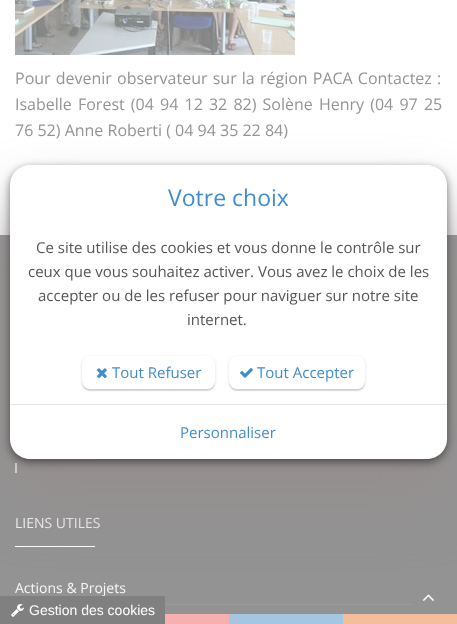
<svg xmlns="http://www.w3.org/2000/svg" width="457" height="624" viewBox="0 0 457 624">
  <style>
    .t1 { font: 16px Open Sans; fill: #949494; }
    .t2 { font: 14px Open Sans; fill: #f7f7f7; }
    .t3 { font: 23px Open Sans; fill: #418dcb; }
    .t4 { font: 15px Open Sans; fill: #555; }
    .t5 { font: 15px Open Sans; fill: #418dcb; }
    .t6 { font: 14px Liberation Sans; fill: #fff; }
  </style>
  <rect width="100%" height="100%" fill="#fff"/>
  <image x="15" y="0" width="280" height="55" href="images/1.png"/>
  <text x="15" y="84" word-spacing="1" class="t1">Pour devenir observateur sur la région PACA Contactez :</text>
  <text x="15" y="110" word-spacing="2" class="t1">Isabelle Forest (04 94 12 32 82) Solène Henry (04 97 25</text>
  <text x="15" y="136" class="t1">76 52) Anne Roberti ( 04 94 35 22 84)</text>
  <rect x="0" y="235" width="457" height="379" fill="#939393"/>
  <rect x="15" y="463" width="2" height="10" fill="#f7f7f7"/>
  <text x="15" y="528" class="t2">LIENS UTILES</text>
  <rect x="15" y="546" width="80" height="1" fill="#fff"/>
  <text x="15" y="593" class="t2">Actions &amp; Projets</text>
  <rect x="165" y="604" width="248" height="1" fill="#9a9a9a"/>
  <rect x="165" y="614" width="64" height="10" fill="#f8afaf"/>
  <rect x="229" y="614" width="114" height="10" fill="#a4c6e1"/>
  <rect x="343" y="614" width="114" height="10" fill="#f4be9a"/>
  <rect x="10" y="205" width="437" height="294" rx="20" fill="#958d8de0" filter="blur(30px)"/>
  <rect x="10" y="168" width="437" height="294" rx="20" fill="#00000080" filter="blur(4.5px)"/>
  <path d="M30 165H427C438 165 447 174 447 185V404H10V185C10 174 19 165 30 165Z" fill="#fff"/>
  <text x="168" y="206" class="t3">Votre choix</text>
  <text x="36" y="253" class="t4">Ce site utilise des cookies et vous donne le contrôle sur</text>
  <text x="28" y="277" class="t4">ceux que vous souhaitez activer. Vous avez le choix de les</text>
  <text x="38" y="301" class="t4">accepter ou de les refuser pour naviguer sur notre site</text>
  <text x="187" y="325" class="t4">internet.</text>
  <rect x="82" y="357" width="133" height="33" rx="8" fill="#00000021" filter="blur(1.5px)"/>
  <rect x="82" y="358" width="133" height="33" rx="8" fill="#0000001a" filter="blur(0.5px)"/>
  <rect x="82" y="356" width="133" height="33" rx="8" fill="#fff"/>
  <image x="97" y="368" width="10" height="11" href="images/2.png"/>
  <text x="112" y="378" class="t5">Tout Refuser</text>
  <rect x="229" y="357" width="136" height="33" rx="8" fill="#00000021" filter="blur(1.5px)"/>
  <rect x="229" y="358" width="136" height="33" rx="8" fill="#0000001a" filter="blur(0.5px)"/>
  <rect x="229" y="356" width="136" height="33" rx="8" fill="#fff"/>
  <image x="240" y="368" width="13" height="10" href="images/3.png"/>
  <text x="257" y="378" class="t5">Tout Accepter</text>
  <path d="M10 404H447V439C447 450 438 459 427 459H30C19 459 10 450 10 439Z" fill="#fff"/>
  <rect x="10" y="404" width="437" height="1" fill="#e5e5e5"/>
  <text x="180" y="438" class="t5">Personnaliser</text>
  <image x="422" y="594" width="12" height="7" href="images/4.png"/>
  <rect x="0" y="596" width="165" height="28" fill="#808080"/>
  <image x="11" y="604" width="13" height="13" href="images/5.png"/>
  <text x="29" y="615" class="t6">Gestion des cookies</text>
</svg>
